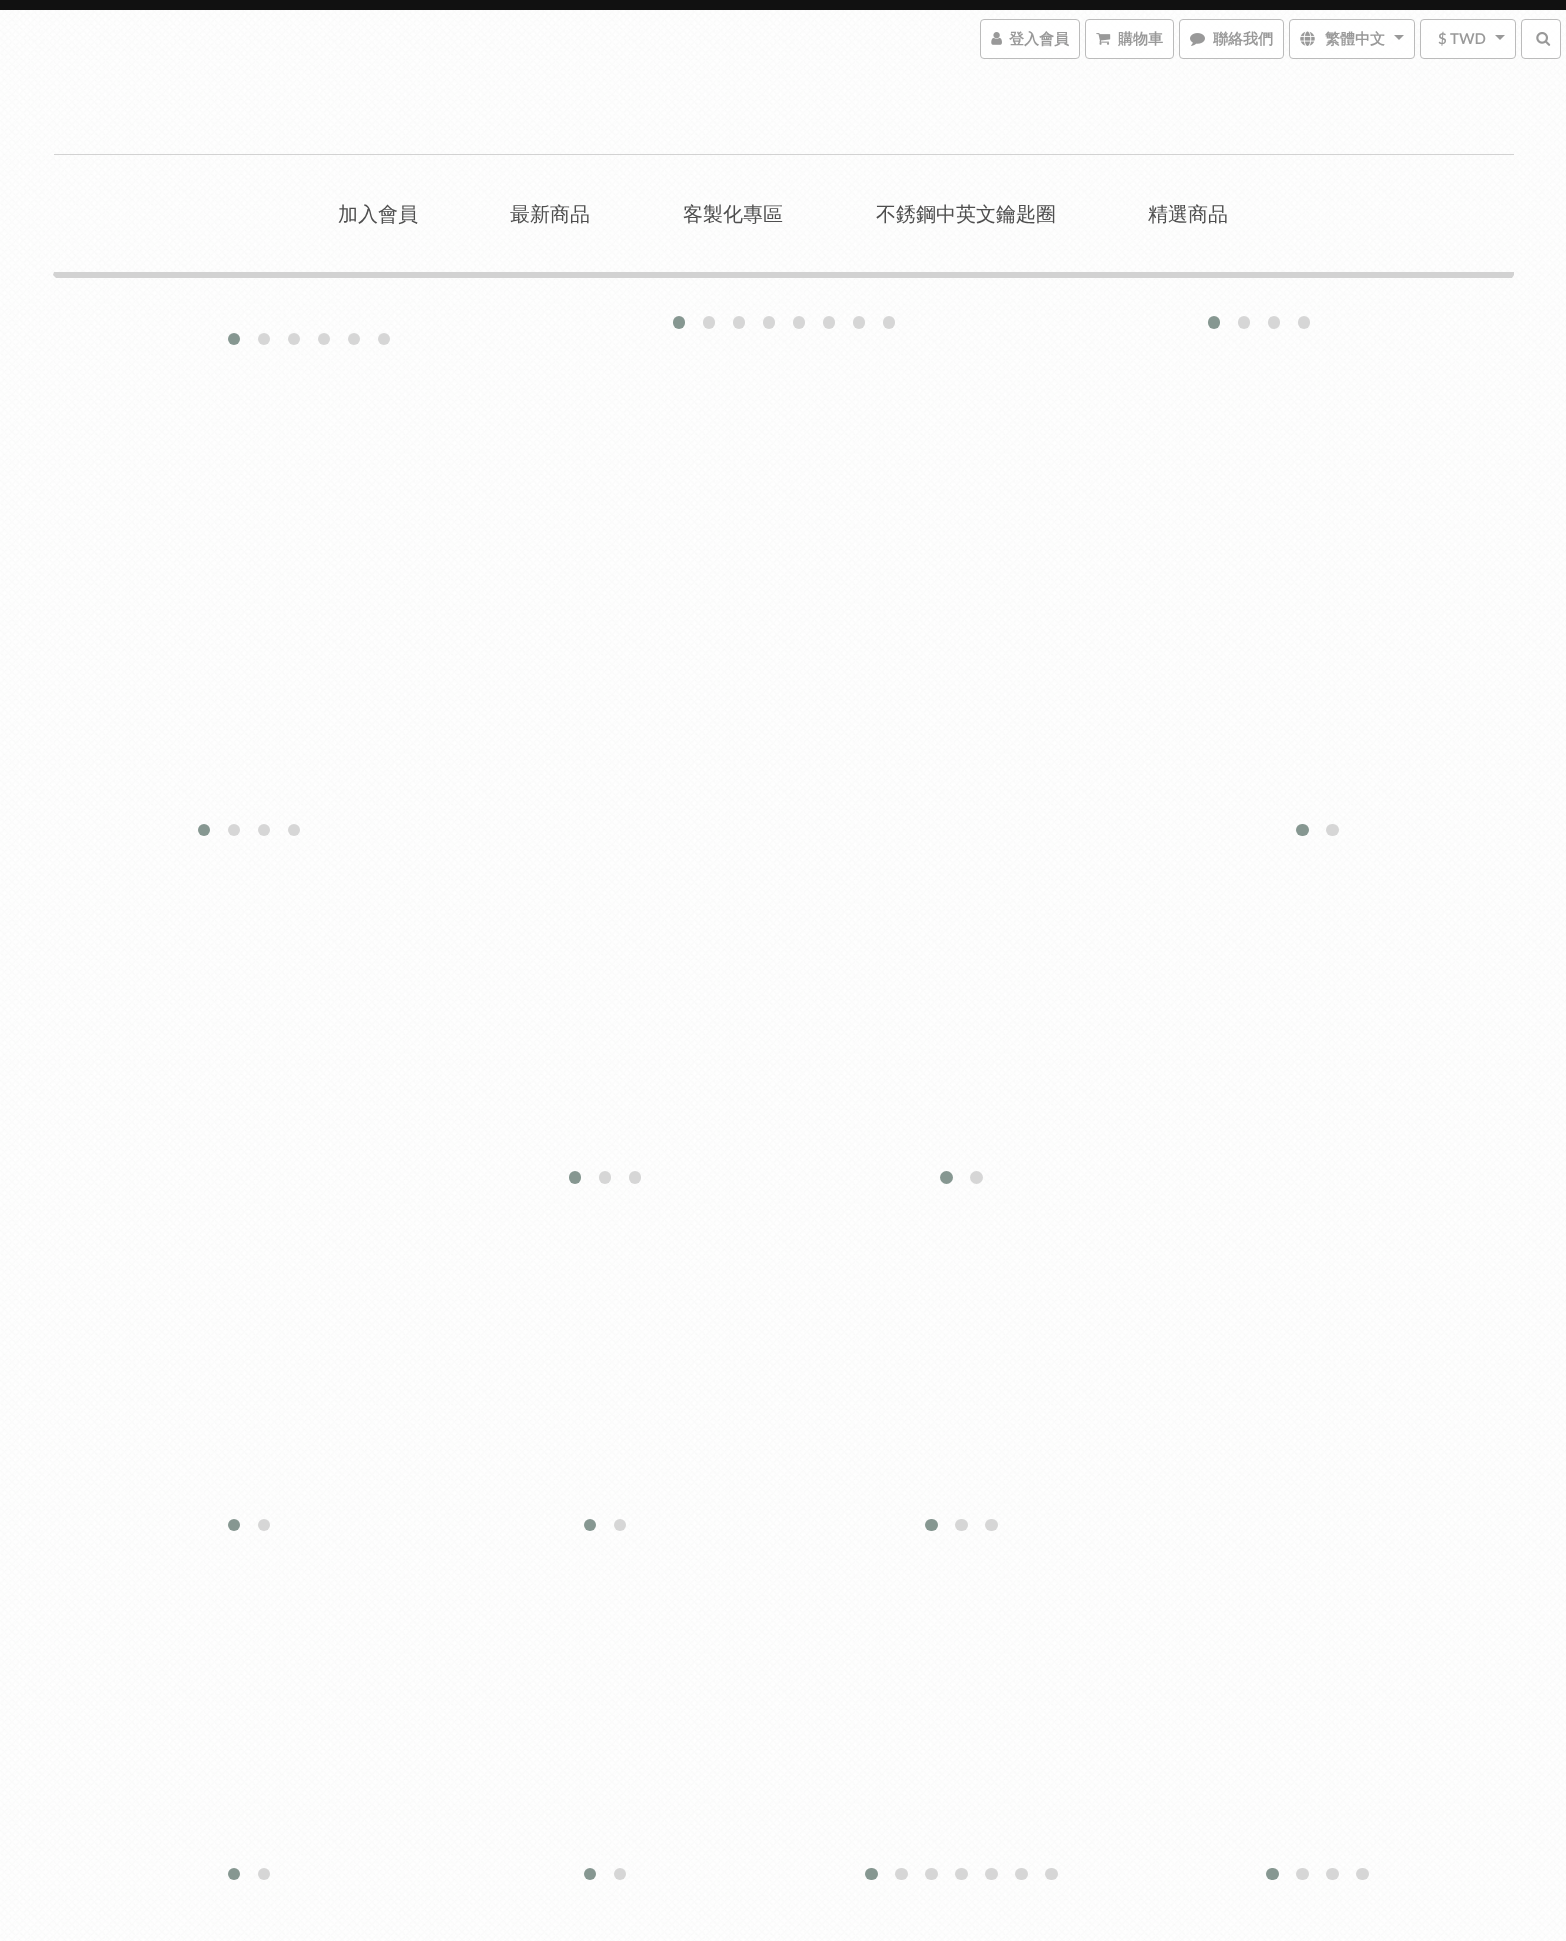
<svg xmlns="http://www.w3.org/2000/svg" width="1566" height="1941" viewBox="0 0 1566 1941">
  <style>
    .t1 { font: bold 15px WenQuanYi Zen Hei; fill: #999; }
    .t2 { font: 600 15px Lato; fill: #999; }
    .t3 { font: 500 20px WenQuanYi Zen Hei; fill: #4e4e4e; }
  </style>
  <rect width="100%" height="100%" fill="#fff"/>
  <image x="0" y="10" width="1566" height="1931" href="images/1.png"/>
  <rect x="980.5" y="19.5" width="99" height="39" rx="3.5" fill="#ffffffcc" stroke="#bbb"/>
  <image x="991" y="32" width="11" height="13" href="images/2.png"/>
  <text x="1009" y="44" class="t1">登入會員</text>
  <rect x="1085.5" y="19.5" width="88" height="39" rx="3.5" fill="#ffffffcc" stroke="#bbb"/>
  <image x="1096" y="33" width="15" height="12" href="images/3.png"/>
  <text x="1118" y="44" class="t1">購物車</text>
  <rect x="1179.5" y="19.5" width="104" height="39" rx="3.5" fill="#ffffffcc" stroke="#bbb"/>
  <image x="1190" y="33" width="15" height="13" href="images/4.png"/>
  <text x="1213" y="44" class="t1">聯絡我們</text>
  <rect x="1289.5" y="19.5" width="125" height="39" rx="3.5" fill="#ffffffcc" stroke="#bbb"/>
  <image x="1300" y="31" width="15" height="15" href="images/5.png"/>
  <text x="1325" y="44" class="t1">繁體中文</text>
  <path d="M1394 35H1404L1399 40Z" fill="#999"/>
  <rect x="1420.5" y="19.5" width="95" height="39" rx="3.5" fill="#ffffffcc" stroke="#bbb"/>
  <text x="1438" y="44" class="t2">$ TWD</text>
  <path d="M1495 35H1505L1500 40Z" fill="#999"/>
  <rect x="1521" y="19" width="40" height="40" rx="4" fill="#ffffffcc"/>
  <rect x="1521.5" y="19.5" width="39" height="39" rx="3.5" fill="none" stroke="#aaaaaacc"/>
  <image x="1536" y="32" width="15" height="14" href="images/6.png"/>
  <rect x="0" y="0" width="1566" height="10" fill="#111"/>
  <path d="M56 278L53 275L54 272H1514V275L1512 278Z" fill="#d2d2d2"/>
  <rect x="54" y="154" width="1460" height="1" fill="#d2d2d2"/>
  <text x="338" y="221" class="t3">加入會員</text>
  <text x="510" y="221" class="t3">最新商品</text>
  <text x="683" y="221" class="t3">客製化專區</text>
  <text x="876" y="221" class="t3">不銹鋼中英文鑰匙圈</text>
  <text x="1148" y="221" class="t3">精選商品</text>
  <rect x="673" y="316" width="12" height="13" rx="6" fill="#869791"/>
  <rect x="703" y="316" width="12" height="13" rx="6" fill="#d6d6d6"/>
  <rect x="733" y="316" width="12" height="13" rx="6" fill="#d6d6d6"/>
  <rect x="763" y="316" width="12" height="13" rx="6" fill="#d6d6d6"/>
  <rect x="793" y="316" width="12" height="13" rx="6" fill="#d6d6d6"/>
  <rect x="823" y="316" width="12" height="13" rx="6" fill="#d6d6d6"/>
  <rect x="853" y="316" width="12" height="13" rx="6" fill="#d6d6d6"/>
  <rect x="883" y="316" width="12" height="13" rx="6" fill="#d6d6d6"/>
  <rect x="1208" y="316" width="12" height="13" rx="6" fill="#869791"/>
  <rect x="1238" y="316" width="12" height="13" rx="6" fill="#d6d6d6"/>
  <rect x="1268" y="316" width="12" height="13" rx="6" fill="#d6d6d6"/>
  <rect x="1298" y="316" width="12" height="13" rx="6" fill="#d6d6d6"/>
  <circle cx="234" cy="339" r="6" fill="#869791"/>
  <circle cx="264" cy="339" r="6" fill="#d6d6d6"/>
  <circle cx="294" cy="339" r="6" fill="#d6d6d6"/>
  <circle cx="324" cy="339" r="6" fill="#d6d6d6"/>
  <circle cx="354" cy="339" r="6" fill="#d6d6d6"/>
  <circle cx="384" cy="339" r="6" fill="#d6d6d6"/>
  <circle cx="204" cy="830" r="6" fill="#869791"/>
  <circle cx="234" cy="830" r="6" fill="#d6d6d6"/>
  <circle cx="264" cy="830" r="6" fill="#d6d6d6"/>
  <circle cx="294" cy="830" r="6" fill="#d6d6d6"/>
  <rect x="1296" y="824" width="13" height="12" rx="6" fill="#869791"/>
  <rect x="1326" y="824" width="13" height="12" rx="6" fill="#d6d6d6"/>
  <rect x="569" y="1171" width="12" height="13" rx="6" fill="#869791"/>
  <rect x="599" y="1171" width="12" height="13" rx="6" fill="#d6d6d6"/>
  <rect x="629" y="1171" width="12" height="13" rx="6" fill="#d6d6d6"/>
  <circle cx="946.5" cy="1177.5" r="6.5" fill="#869791"/>
  <circle cx="976.5" cy="1177.5" r="6.5" fill="#d6d6d6"/>
  <circle cx="234" cy="1525" r="6" fill="#869791"/>
  <circle cx="264" cy="1525" r="6" fill="#d6d6d6"/>
  <circle cx="590" cy="1525" r="6" fill="#869791"/>
  <circle cx="620" cy="1525" r="6" fill="#d6d6d6"/>
  <rect x="925" y="1519" width="13" height="12" rx="6" fill="#869791"/>
  <rect x="955" y="1519" width="13" height="12" rx="6" fill="#d6d6d6"/>
  <rect x="985" y="1519" width="13" height="12" rx="6" fill="#d6d6d6"/>
  <circle cx="234" cy="1874" r="6" fill="#869791"/>
  <circle cx="264" cy="1874" r="6" fill="#d6d6d6"/>
  <circle cx="590" cy="1874" r="6" fill="#869791"/>
  <circle cx="620" cy="1874" r="6" fill="#d6d6d6"/>
  <rect x="865" y="1868" width="13" height="12" rx="6" fill="#869791"/>
  <rect x="895" y="1868" width="13" height="12" rx="6" fill="#d6d6d6"/>
  <rect x="925" y="1868" width="13" height="12" rx="6" fill="#d6d6d6"/>
  <rect x="955" y="1868" width="13" height="12" rx="6" fill="#d6d6d6"/>
  <rect x="985" y="1868" width="13" height="12" rx="6" fill="#d6d6d6"/>
  <rect x="1015" y="1868" width="13" height="12" rx="6" fill="#d6d6d6"/>
  <rect x="1045" y="1868" width="13" height="12" rx="6" fill="#d6d6d6"/>
  <rect x="1266" y="1868" width="13" height="12" rx="6" fill="#869791"/>
  <rect x="1296" y="1868" width="13" height="12" rx="6" fill="#d6d6d6"/>
  <rect x="1326" y="1868" width="13" height="12" rx="6" fill="#d6d6d6"/>
  <rect x="1356" y="1868" width="13" height="12" rx="6" fill="#d6d6d6"/>
</svg>
